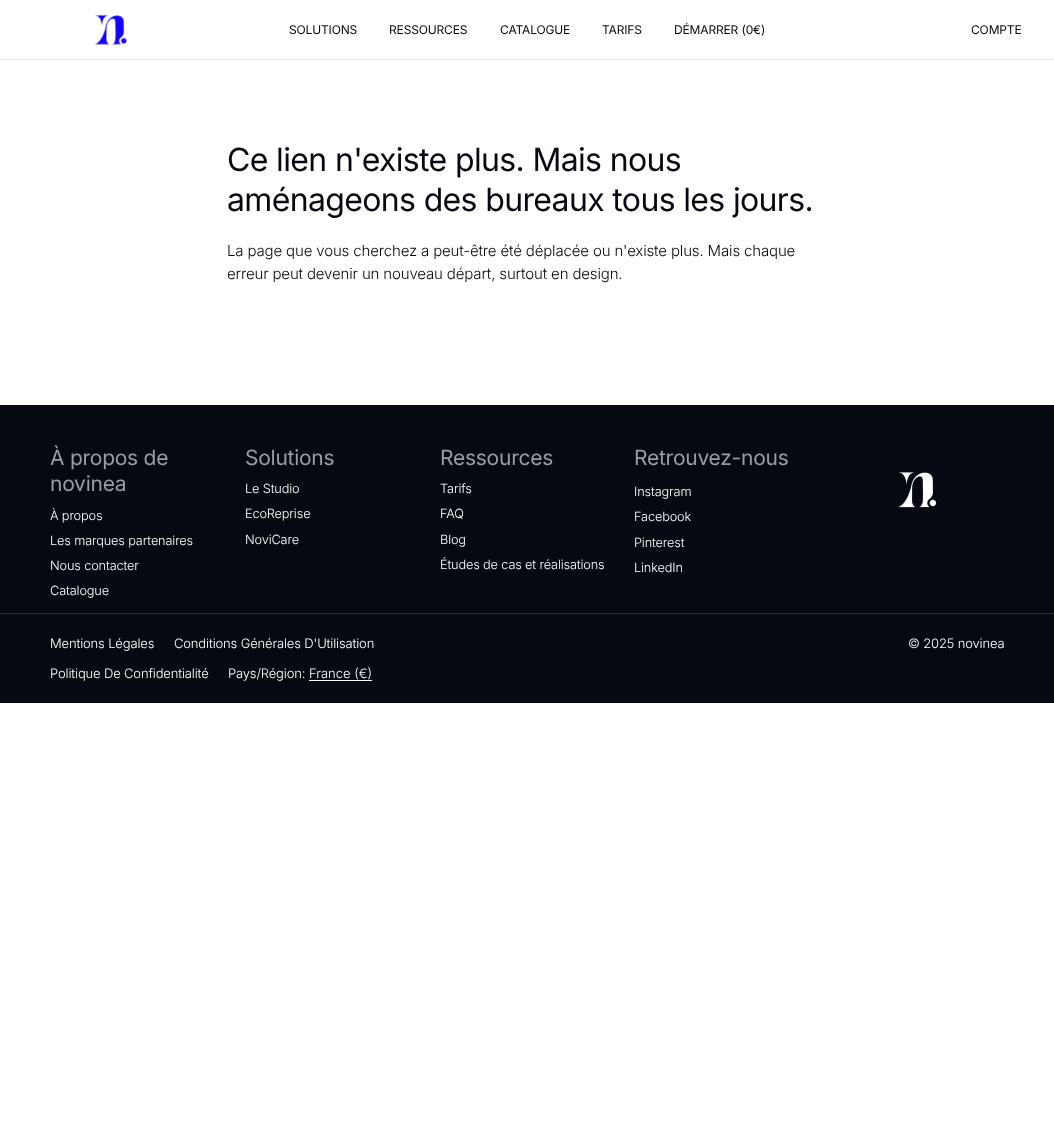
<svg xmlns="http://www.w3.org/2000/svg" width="1054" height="1128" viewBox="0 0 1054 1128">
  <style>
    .t1 { font: 12px Inter; letter-spacing: -0.15px; fill: #060911; }
    .t2 { font: 32px Inter; letter-spacing: -0.65px; fill: #060911; }
    .t3 { font: 300 15px Inter; letter-spacing: -0.15px; fill: #060911; }
    .t4 { font: 21px Inter; letter-spacing: -0.25px; fill: #9b9da0; }
    .t5 { font: 300 12.75px Inter; letter-spacing: -0.15px; fill: #fff; }
    .t6 { font: 300 13px Inter; letter-spacing: -0.15px; fill: #fff; }
    .t7 { font: 300 13px Inter; fill: #fff; }
  </style>
  <rect width="100%" height="100%" fill="#fff"/>
  <rect x="0" y="59" width="1054" height="1" fill="#e6e6e6"/>
  <image x="94" y="14" width="33" height="31" href="images/1.png"/>
  <text x="289" y="34" class="t1">SOLUTIONS</text>
  <text x="389" y="34" class="t1">RESSOURCES</text>
  <text x="500" y="34" class="t1">CATALOGUE</text>
  <text x="602" y="34" class="t1">TARIFS</text>
  <text x="674" y="34" class="t1">DÉMARRER (0€)</text>
  <text x="971" y="34" class="t1">COMPTE</text>
  <text x="227" y="171" class="t2">Ce lien n'existe plus. Mais nous</text>
  <text x="227" y="211" class="t2">aménageons des bureaux tous les jours.</text>
  <text x="227" y="256" class="t3">La page que vous cherchez a peut-être été déplacée ou n'existe plus. Mais chaque</text>
  <text x="227" y="279" class="t3">erreur peut devenir un nouveau départ, surtout en design.</text>
  <rect x="0" y="405" width="1054" height="298" fill="#060911"/>
  <text x="50" y="465" class="t4">À propos de</text>
  <text x="50" y="491" class="t4">novinea</text>
  <text x="50" y="520" class="t5">À propos</text>
  <text x="50" y="545" class="t5">Les marques partenaires</text>
  <text x="50" y="570" class="t5">Nous contacter</text>
  <text x="50" y="595" class="t5">Catalogue</text>
  <text x="245" y="465" class="t4">Solutions</text>
  <text x="245" y="493" class="t5">Le Studio</text>
  <text x="245" y="518" class="t5">EcoReprise</text>
  <text x="245" y="544" class="t5">NoviCare</text>
  <text x="440" y="465" class="t4">Ressources</text>
  <text x="440" y="493" class="t5">Tarifs</text>
  <text x="440" y="518" class="t5">FAQ</text>
  <text x="440" y="544" class="t5">Blog</text>
  <text x="440" y="569" class="t5">Études de cas et réalisations</text>
  <text x="634" y="465" class="t4">Retrouvez-nous</text>
  <text x="634" y="496" class="t5">Instagram</text>
  <text x="634" y="521" class="t5">Facebook</text>
  <text x="634" y="547" class="t5">Pinterest</text>
  <text x="634" y="572" class="t5">LinkedIn</text>
  <image x="898" y="472" width="39" height="36" href="images/2.png"/>
  <rect x="0" y="613" width="1054" height="1" fill="#2b2e35"/>
  <text x="50" y="648" class="t6">Mentions Légales</text>
  <text x="174" y="648" class="t6">Conditions Générales D'Utilisation</text>
  <text x="50" y="678" class="t6">Politique De Confidentialité</text>
  <text x="228" y="678" class="t6">Pays/Région:</text>
  <text x="309" y="678" class="t7">France (€)</text>
  <rect x="309" y="680" width="63" height="1" fill="#fff"/>
  <text x="908" y="648" class="t6">© 2025 novinea</text>
</svg>
